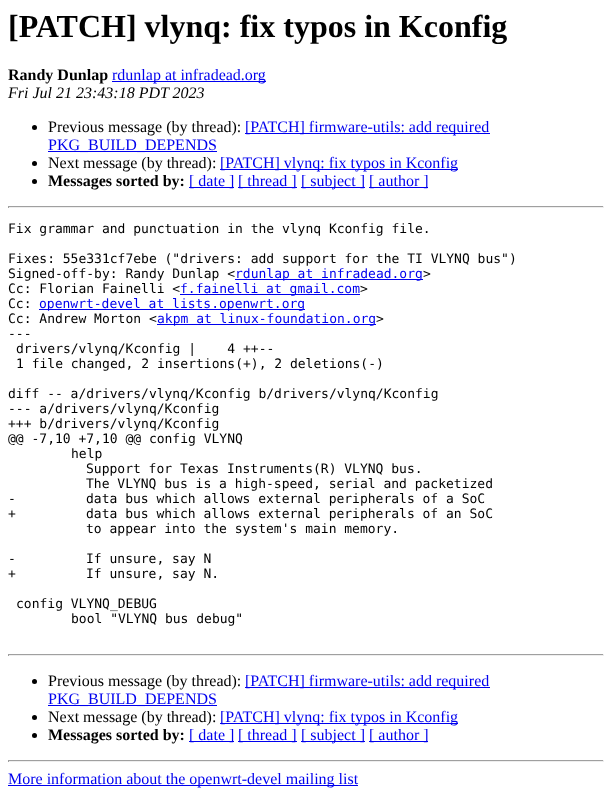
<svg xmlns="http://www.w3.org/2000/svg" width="612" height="802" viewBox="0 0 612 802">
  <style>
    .t1 { font: bold 32px Liberation Serif; fill: #000; }
    .t2 { font: bold 16px Liberation Serif; fill: #000; }
    .t3 { font: 16px Liberation Serif; fill: #00e; }
    .t4 { font: italic 16px Liberation Serif; fill: #000; }
    .t5 { font: 16px Liberation Serif; fill: #000; }
    .t6 { font: 13px DejaVu Sans Mono; fill: #000; }
    .t7 { font: 13px DejaVu Sans Mono; fill: #00e; }
  </style>
  <rect width="100%" height="100%" fill="#fff"/>
  <text x="8" y="37" class="t1">[PATCH] vlynq: fix typos in Kconfig</text>
  <text x="8" y="80" class="t2">Randy Dunlap</text>
  <rect x="112" y="81" width="154" height="1" fill="#00e"/>
  <text x="112" y="80" class="t3">rdunlap at infradead.org</text>
  <text x="8" y="98" class="t4">Fri Jul 21 23:43:18 PDT 2023</text>
  <circle cx="34.5" cy="127.5" r="2.5" fill="#000"/>
  <text x="48" y="132" class="t5">Previous message (by thread):</text>
  <rect x="245" y="133" width="245" height="1" fill="#00e"/>
  <text x="245" y="132" class="t3">[PATCH] firmware-utils: add required</text>
  <rect x="48" y="151" width="169" height="1" fill="#00e"/>
  <text x="48" y="150" class="t3">PKG_BUILD_DEPENDS</text>
  <circle cx="34.5" cy="163.5" r="2.5" fill="#000"/>
  <text x="48" y="168" class="t5">Next message (by thread):</text>
  <rect x="220" y="169" width="238" height="1" fill="#00e"/>
  <text x="220" y="168" class="t3">[PATCH] vlynq: fix typos in Kconfig</text>
  <circle cx="34.5" cy="181.5" r="2.5" fill="#000"/>
  <text x="48" y="186" class="t2">Messages sorted by:</text>
  <rect x="189" y="187" width="45" height="1" fill="#00e"/>
  <text x="189" y="186" class="t3">[ date ]</text>
  <rect x="238" y="187" width="59" height="1" fill="#00e"/>
  <text x="238" y="186" class="t3">[ thread ]</text>
  <rect x="301" y="187" width="64" height="1" fill="#00e"/>
  <text x="301" y="186" class="t3">[ subject ]</text>
  <rect x="369" y="187" width="59" height="1" fill="#00e"/>
  <text x="369" y="186" class="t3">[ author ]</text>
  <rect x="8" y="206" width="596" height="1" fill="#9f9f9f"/>
  <rect x="603" y="206" width="1" height="2" fill="#eee"/>
  <rect x="8" y="207" width="596" height="1" fill="#eee"/>
  <rect x="8" y="206" width="1" height="2" fill="#9f9f9f"/>
  <text x="8" y="233" class="t6">Fix grammar and punctuation in the vlynq Kconfig file.</text>
  <text x="8" y="263" class="t6">Fixes: 55e331cf7ebe ("drivers: add support for the TI VLYNQ bus")</text>
  <text x="8" y="278" class="t6">Signed-off-by: Randy Dunlap &lt;</text>
  <rect x="235" y="279" width="188" height="1" fill="#00e"/>
  <text x="235" y="278" class="t7">rdunlap at infradead.org</text>
  <text x="423" y="278" class="t6">&gt;</text>
  <text x="8" y="293" class="t6">Cc: Florian Fainelli &lt;</text>
  <rect x="180" y="294" width="180" height="1" fill="#00e"/>
  <text x="180" y="293" class="t7">f.fainelli at gmail.com</text>
  <text x="360" y="293" class="t6">&gt;</text>
  <text x="8" y="308" class="t6">Cc:</text>
  <rect x="39" y="309" width="266" height="1" fill="#00e"/>
  <text x="39" y="308" class="t7">openwrt-devel at lists.openwrt.org</text>
  <text x="8" y="323" class="t6">Cc: Andrew Morton &lt;</text>
  <rect x="157" y="324" width="219" height="1" fill="#00e"/>
  <text x="157" y="323" class="t7">akpm at linux-foundation.org</text>
  <text x="376" y="323" class="t6">&gt;</text>
  <text x="8" y="338" class="t6">---</text>
  <text x="16" y="353" class="t6" xml:space="preserve">drivers/vlynq/Kconfig |    4 ++--</text>
  <text x="16" y="368" class="t6">1 file changed, 2 insertions(+), 2 deletions(-)</text>
  <text x="8" y="398" class="t6">diff -- a/drivers/vlynq/Kconfig b/drivers/vlynq/Kconfig</text>
  <text x="8" y="413" class="t6">--- a/drivers/vlynq/Kconfig</text>
  <text x="8" y="428" class="t6">+++ b/drivers/vlynq/Kconfig</text>
  <text x="8" y="443" class="t6">@@ -7,10 +7,10 @@ config VLYNQ</text>
  <text x="71" y="458" class="t6">help</text>
  <text x="86" y="473" class="t6">Support for Texas Instruments(R) VLYNQ bus.</text>
  <text x="86" y="488" class="t6">The VLYNQ bus is a high-speed, serial and packetized</text>
  <text x="8" y="503" class="t6">-</text>
  <text x="86" y="503" class="t6">data bus which allows external peripherals of a SoC</text>
  <text x="8" y="518" class="t6">+</text>
  <text x="86" y="518" class="t6">data bus which allows external peripherals of an SoC</text>
  <text x="86" y="533" class="t6">to appear into the system's main memory.</text>
  <text x="8" y="563" class="t6">-</text>
  <text x="86" y="563" class="t6">If unsure, say N</text>
  <text x="8" y="578" class="t6">+</text>
  <text x="86" y="578" class="t6">If unsure, say N.</text>
  <text x="16" y="608" class="t6">config VLYNQ_DEBUG</text>
  <text x="71" y="623" class="t6">bool "VLYNQ bus debug"</text>
  <rect x="8" y="654" width="596" height="1" fill="#9f9f9f"/>
  <rect x="603" y="654" width="1" height="2" fill="#eee"/>
  <rect x="8" y="655" width="596" height="1" fill="#eee"/>
  <rect x="8" y="654" width="1" height="2" fill="#9f9f9f"/>
  <circle cx="34.5" cy="681.5" r="2.5" fill="#000"/>
  <text x="48" y="686" class="t5">Previous message (by thread):</text>
  <rect x="245" y="687" width="245" height="1" fill="#00e"/>
  <text x="245" y="686" class="t3">[PATCH] firmware-utils: add required</text>
  <rect x="48" y="705" width="169" height="1" fill="#00e"/>
  <text x="48" y="704" class="t3">PKG_BUILD_DEPENDS</text>
  <circle cx="34.5" cy="717.5" r="2.5" fill="#000"/>
  <text x="48" y="722" class="t5">Next message (by thread):</text>
  <rect x="220" y="723" width="238" height="1" fill="#00e"/>
  <text x="220" y="722" class="t3">[PATCH] vlynq: fix typos in Kconfig</text>
  <circle cx="34.5" cy="735.5" r="2.5" fill="#000"/>
  <text x="48" y="740" class="t2">Messages sorted by:</text>
  <rect x="189" y="741" width="45" height="1" fill="#00e"/>
  <text x="189" y="740" class="t3">[ date ]</text>
  <rect x="238" y="741" width="59" height="1" fill="#00e"/>
  <text x="238" y="740" class="t3">[ thread ]</text>
  <rect x="301" y="741" width="64" height="1" fill="#00e"/>
  <text x="301" y="740" class="t3">[ subject ]</text>
  <rect x="369" y="741" width="59" height="1" fill="#00e"/>
  <text x="369" y="740" class="t3">[ author ]</text>
  <rect x="8" y="760" width="596" height="1" fill="#9f9f9f"/>
  <rect x="603" y="760" width="1" height="2" fill="#eee"/>
  <rect x="8" y="761" width="596" height="1" fill="#eee"/>
  <rect x="8" y="760" width="1" height="2" fill="#9f9f9f"/>
  <rect x="8" y="785" width="350" height="1" fill="#00e"/>
  <text x="8" y="784" class="t3">More information about the openwrt-devel mailing list</text>
</svg>
